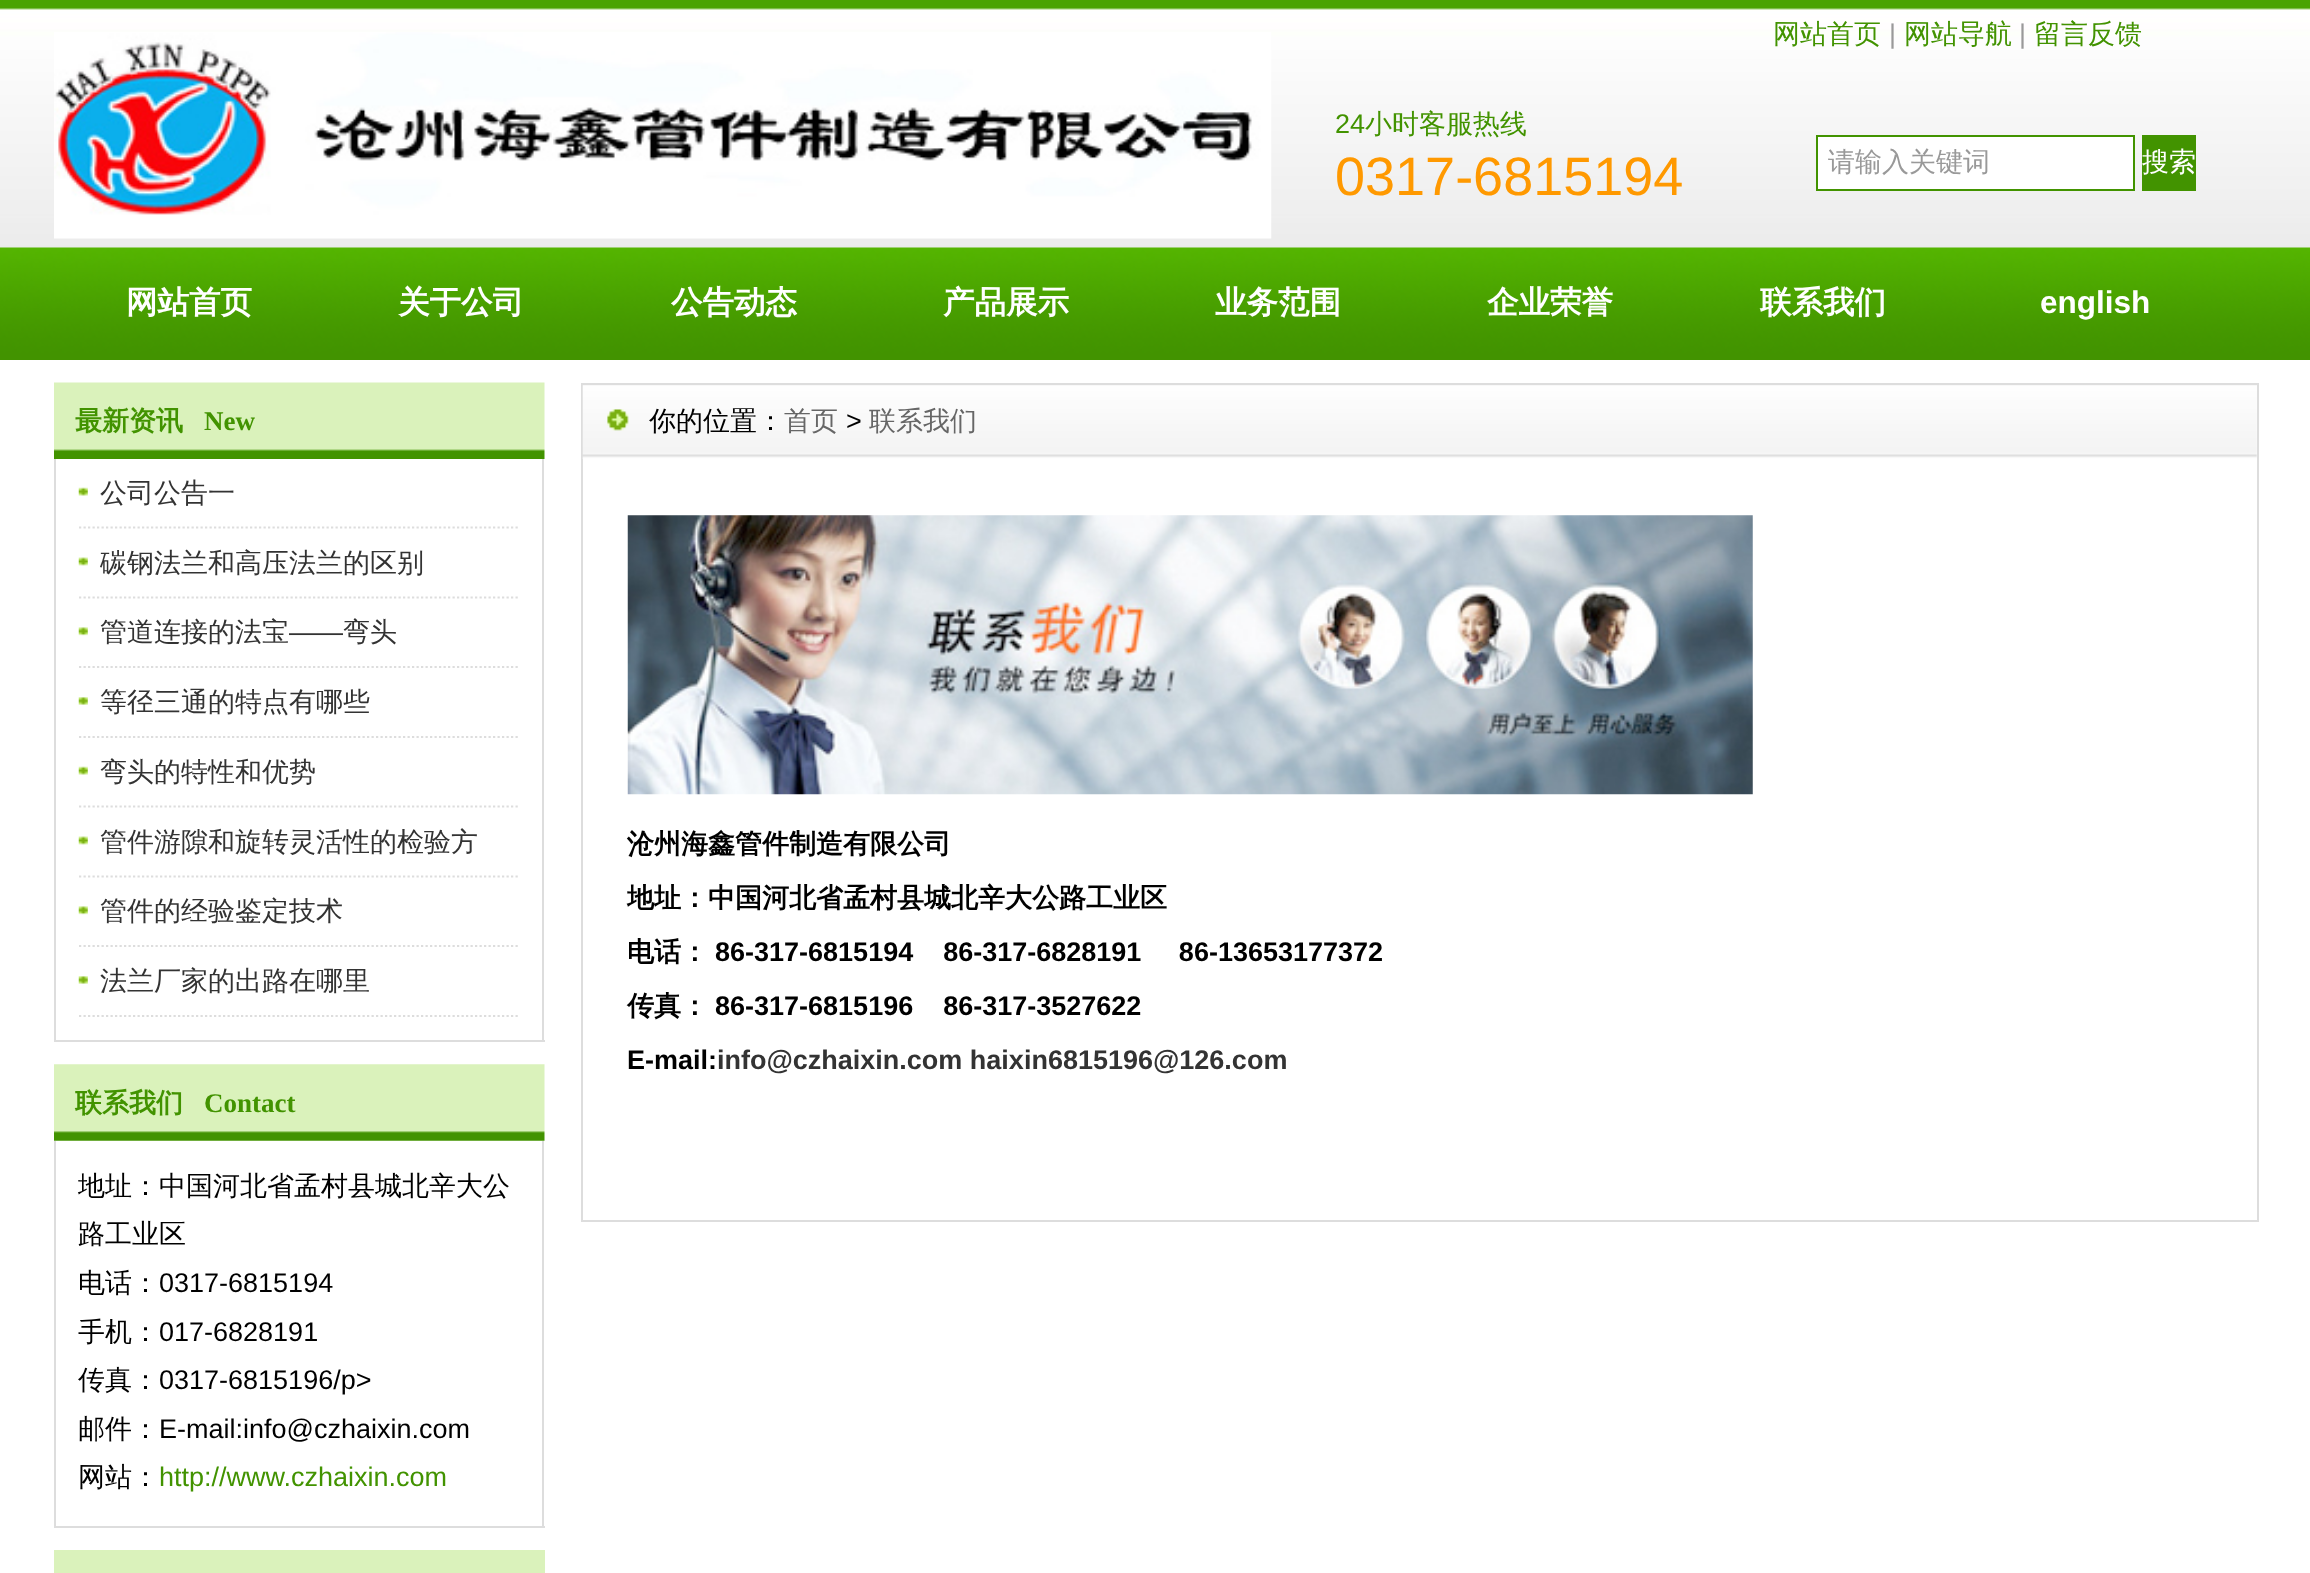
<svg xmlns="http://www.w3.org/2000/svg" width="2310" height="1573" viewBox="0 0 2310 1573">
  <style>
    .t1 { font: 500 27px WenQuanYi Zen Hei; fill: #429300; }
    .t2 { font: 27px Liberation Sans; fill: #999; }
    .t3 { font: 27px Liberation Sans; fill: #429300; }
    .t4 { font: 54px Liberation Sans; fill: #f90; }
    .t5 { font: 500 27px WenQuanYi Zen Hei; fill: #999; }
    .t6 { font: 500 27px WenQuanYi Zen Hei; fill: #fff; }
    .t7 { font: bold 31.5px WenQuanYi Zen Hei; fill: #fff; }
    .t8 { font: bold 31.5px Liberation Sans; fill: #fff; }
    .t9 { font: bold 27px WenQuanYi Zen Hei; fill: #429300; }
    .t10 { font: bold 27px Liberation Serif; fill: #429300; }
    .t11 { font: 500 27px WenQuanYi Zen Hei; fill: #333; }
    .t12 { font: 27px Liberation Sans; fill: #333; }
    .t13 { font: 500 27px WenQuanYi Zen Hei; fill: #000; }
    .t14 { font: 27px Liberation Sans; fill: #000; }
    .t15 { font: 500 27px WenQuanYi Zen Hei; fill: #666; }
    .t16 { font: bold 27px WenQuanYi Zen Hei; fill: #000; }
    .t17 { font: bold 27px Liberation Sans; fill: #000; }
    .t18 { font: bold 27px Liberation Sans; fill: #333; }
  </style>
  <rect width="100%" height="100%" fill="#fff"/>
  <image x="0" y="0" width="2310" height="248" href="images/1.png"/>
  <image x="54" y="32" width="1218" height="207" href="images/2.png"/>
  <text x="1773" y="43" class="t1">网站首页</text>
  <text x="1889" y="43" class="t2">|</text>
  <text x="1904" y="43" class="t1">网站导航</text>
  <text x="2019" y="43" class="t2">|</text>
  <text x="2034" y="43" class="t1">留言反馈</text>
  <text x="1335" y="133" class="t3">24</text>
  <text x="1365" y="133" class="t1">小时客服热线</text>
  <text x="1335" y="195" class="t4">0317-6815194</text>
  <rect x="1817" y="136" width="317" height="54" fill="#fff" stroke="#429300" stroke-width="2"/>
  <text x="1828" y="171" class="t5">请输入关键词</text>
  <rect x="2142" y="135" width="54" height="56" fill="#429300"/>
  <text x="2142" y="171" class="t6">搜索</text>
  <image x="0" y="247" width="2310" height="113" href="images/3.png"/>
  <text x="126" y="313" class="t7">网站首页</text>
  <text x="398" y="313" class="t7">关于公司</text>
  <text x="671" y="313" class="t7">公告动态</text>
  <text x="943" y="313" class="t7">产品展示</text>
  <text x="1215" y="313" class="t7">业务范围</text>
  <text x="1487" y="313" class="t7">企业荣誉</text>
  <text x="1760" y="313" class="t7">联系我们</text>
  <text x="2040" y="313" class="t8">english</text>
  <image x="54" y="382" width="491" height="77" href="images/4.png"/>
  <text x="75" y="430" class="t9">最新资讯</text>
  <text x="204" y="430" class="t10">New</text>
  <rect x="542" y="459" width="2" height="583" fill="#ddd"/>
  <rect x="54" y="1040" width="491" height="2" fill="#ddd"/>
  <rect x="54" y="459" width="2" height="583" fill="#ddd"/>
  <image x="78" y="487" width="10" height="9" href="images/5.png"/>
  <path d="M79 527.5H520" fill="none" stroke="#ddd" stroke-width="2.2" stroke-dasharray="2.25 2.25"/>
  <text x="100" y="502" class="t11">公司公告一</text>
  <image x="78" y="557" width="10" height="9" href="images/6.png"/>
  <path d="M79 597.5H520" fill="none" stroke="#ddd" stroke-width="2.2" stroke-dasharray="2.25 2.25"/>
  <text x="100" y="572" class="t11">碳钢法兰和高压法兰的区别</text>
  <image x="78" y="627" width="10" height="9" href="images/7.png"/>
  <path d="M79 667H520" fill="none" stroke="#ddd" stroke-width="2.2" stroke-dasharray="2.25 2.25"/>
  <text x="100" y="641" class="t11">管道连接的法宝</text>
  <text x="289" y="641" class="t12">——</text>
  <text x="343" y="641" class="t11">弯头</text>
  <image x="78" y="697" width="10" height="8" href="images/8.png"/>
  <path d="M79 737H520" fill="none" stroke="#ddd" stroke-width="2.2" stroke-dasharray="2.25 2.25"/>
  <text x="100" y="711" class="t11">等径三通的特点有哪些</text>
  <image x="78" y="766" width="10" height="9" href="images/9.png"/>
  <path d="M79 806.5H520" fill="none" stroke="#ddd" stroke-width="2.2" stroke-dasharray="2.25 2.25"/>
  <text x="100" y="781" class="t11">弯头的特性和优势</text>
  <image x="78" y="836" width="10" height="9" href="images/6.png"/>
  <path d="M79 876.5H520" fill="none" stroke="#ddd" stroke-width="2.2" stroke-dasharray="2.25 2.25"/>
  <text x="100" y="851" class="t11">管件游隙和旋转灵活性的检验方</text>
  <image x="78" y="906" width="10" height="9" href="images/7.png"/>
  <path d="M79 946H520" fill="none" stroke="#ddd" stroke-width="2.2" stroke-dasharray="2.25 2.25"/>
  <text x="100" y="920" class="t11">管件的经验鉴定技术</text>
  <image x="78" y="976" width="10" height="8" href="images/8.png"/>
  <path d="M79 1016H520" fill="none" stroke="#ddd" stroke-width="2.2" stroke-dasharray="2.25 2.25"/>
  <text x="100" y="990" class="t11">法兰厂家的出路在哪里</text>
  <image x="54" y="1064" width="491" height="77" href="images/10.png"/>
  <text x="75" y="1112" class="t9">联系我们</text>
  <text x="204" y="1112" class="t10">Contact</text>
  <rect x="542" y="1141" width="2" height="387" fill="#ddd"/>
  <rect x="54" y="1526" width="491" height="2" fill="#ddd"/>
  <rect x="54" y="1141" width="2" height="387" fill="#ddd"/>
  <text x="78" y="1195" class="t13">地址：中国河北省孟村县城北辛大公</text>
  <text x="78" y="1243" class="t13">路工业区</text>
  <text x="78" y="1292" class="t13">电话：</text>
  <text x="159" y="1292" class="t14">0317-6815194</text>
  <text x="78" y="1341" class="t13">手机：</text>
  <text x="159" y="1341" class="t14">017-6828191</text>
  <text x="78" y="1389" class="t13">传真：</text>
  <text x="159" y="1389" class="t14">0317-6815196/p&gt;</text>
  <text x="78" y="1438" class="t13">邮件：</text>
  <text x="159" y="1438" class="t14">E-mail:info@czhaixin.com</text>
  <text x="78" y="1486" class="t13">网站：</text>
  <text x="159" y="1486" class="t3">http://www.czhaixin.com</text>
  <rect x="54" y="1550" width="491" height="23" fill="#daf2bb"/>
  <rect x="582" y="384" width="1676" height="837" fill="none" stroke="#ddd" stroke-width="2"/>
  <image x="582" y="385" width="1675" height="74" href="images/11.png"/>
  <image x="607" y="409" width="22" height="22" href="images/12.png"/>
  <text x="649" y="430" class="t13">你的位置：</text>
  <text x="784" y="430" class="t15">首页</text>
  <text x="846" y="430" class="t14">&gt;</text>
  <text x="869" y="430" class="t15">联系我们</text>
  <image x="627" y="515" width="1126" height="280" href="images/13.png"/>
  <text x="627" y="853" class="t16">沧州海鑫管件制造有限公司</text>
  <text x="627" y="907" class="t16">地址：中国河北省孟村县城北辛大公路工业区</text>
  <text x="627" y="961" class="t16">电话：</text>
  <text x="715" y="961" class="t17" xml:space="preserve">86-317-6815194    86-317-6828191     86-13653177372</text>
  <text x="627" y="1015" class="t16">传真：</text>
  <text x="715" y="1015" class="t17" xml:space="preserve">86-317-6815196    86-317-3527622</text>
  <text x="627" y="1069" class="t17">E-mail:</text>
  <text x="717" y="1069" class="t18">info@czhaixin.com haixin6815196@126.com</text>
</svg>
